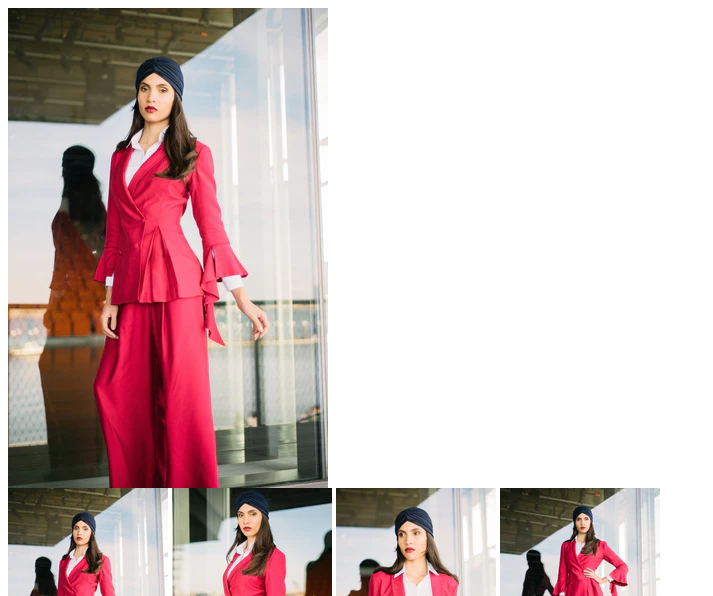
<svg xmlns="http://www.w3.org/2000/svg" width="713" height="596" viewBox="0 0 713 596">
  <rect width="100%" height="100%" fill="#fff"/>
  <image x="8" y="8" width="320" height="480" href="images/1.png"/>
  <image x="8" y="488" width="160" height="108" href="images/2.png"/>
  <image x="172" y="488" width="160" height="108" href="images/3.png"/>
  <image x="336" y="488" width="160" height="108" href="images/4.png"/>
  <image x="500" y="488" width="160" height="108" href="images/5.png"/>
</svg>
